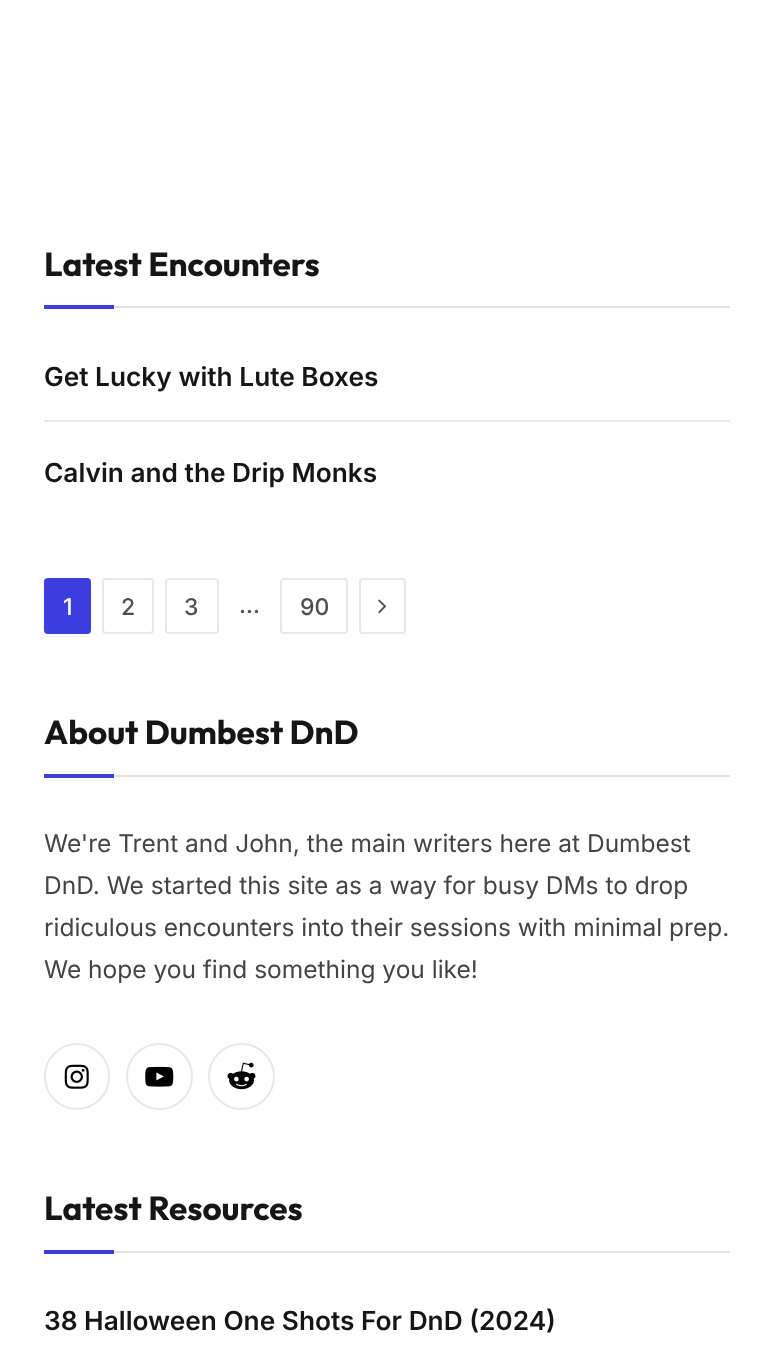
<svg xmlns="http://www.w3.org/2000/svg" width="772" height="1362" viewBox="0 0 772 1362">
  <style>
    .t1 { font: bold 33.25px Outfit; fill: #161616; }
    .t2 { font: 600 26.25px Inter; fill: #161616; }
    .t3 { font: 500 23px Inter; fill: #fff; }
    .t4 { font: 500 23px Inter; fill: #505050; }
    .t5 { font: 24.5px Inter; fill: #444; }
  </style>
  <rect width="100%" height="100%" fill="#fff"/>
  <rect x="114" y="306" width="616" height="2" fill="#e2e2e2"/>
  <text x="44" y="276" class="t1">Latest Encounters</text>
  <rect x="44" y="305" width="70" height="4" fill="#3c3fde"/>
  <text x="44" y="386" class="t2">Get Lucky with Lute Boxes</text>
  <rect x="44" y="420" width="686" height="2" fill="#e8e8e8"/>
  <text x="44" y="482" class="t2">Calvin and the Drip Monks</text>
  <rect x="44" y="578" width="47" height="56" rx="4" fill="#3c3fde"/>
  <text x="63" y="615" class="t3">1</text>
  <rect x="103" y="579" width="50" height="54" rx="3" fill="none" stroke="#e8e8e8" stroke-width="2"/>
  <text x="121" y="615" class="t4">2</text>
  <rect x="166" y="579" width="52" height="54" rx="3" fill="none" stroke="#e8e8e8" stroke-width="2"/>
  <text x="184" y="615" class="t4">3</text>
  <text x="239" y="613" class="t4">…</text>
  <rect x="281" y="579" width="66" height="54" rx="3" fill="none" stroke="#e8e8e8" stroke-width="2"/>
  <text x="300" y="615" class="t4">90</text>
  <rect x="360" y="579" width="45" height="54" rx="3" fill="none" stroke="#e8e8e8" stroke-width="2"/>
  <image x="378" y="599" width="9" height="15" href="images/1.png"/>
  <rect x="114" y="775" width="616" height="2" fill="#e2e2e2"/>
  <text x="44" y="744" class="t1">About Dumbest DnD</text>
  <rect x="44" y="774" width="70" height="4" fill="#3c3fde"/>
  <text x="44" y="852" class="t5">We're Trent and John, the main writers here at Dumbest</text>
  <text x="44" y="894" class="t5">DnD. We started this site as a way for busy DMs to drop</text>
  <text x="44" y="936" class="t5">ridiculous encounters into their sessions with minimal prep.</text>
  <text x="44" y="978" class="t5">We hope you find something you like!</text>
  <rect x="45" y="1044" width="64" height="65" rx="32" fill="none" stroke="#e8e8e8" stroke-width="2"/>
  <image x="64" y="1064" width="25" height="25" href="images/2.png"/>
  <circle cx="159.5" cy="1076.5" r="32.5" fill="none" stroke="#e8e8e8" stroke-width="2"/>
  <image x="145" y="1066" width="29" height="21" href="images/3.png"/>
  <circle cx="241.5" cy="1076.5" r="32.5" fill="none" stroke="#e8e8e8" stroke-width="2"/>
  <image x="227" y="1062" width="29" height="28" href="images/4.png"/>
  <rect x="114" y="1251" width="616" height="2" fill="#e2e2e2"/>
  <text x="44" y="1220" class="t1">Latest Resources</text>
  <rect x="44" y="1250" width="70" height="4" fill="#3c3fde"/>
  <text x="44" y="1330" class="t2">38 Halloween One Shots For DnD (2024)</text>
</svg>
